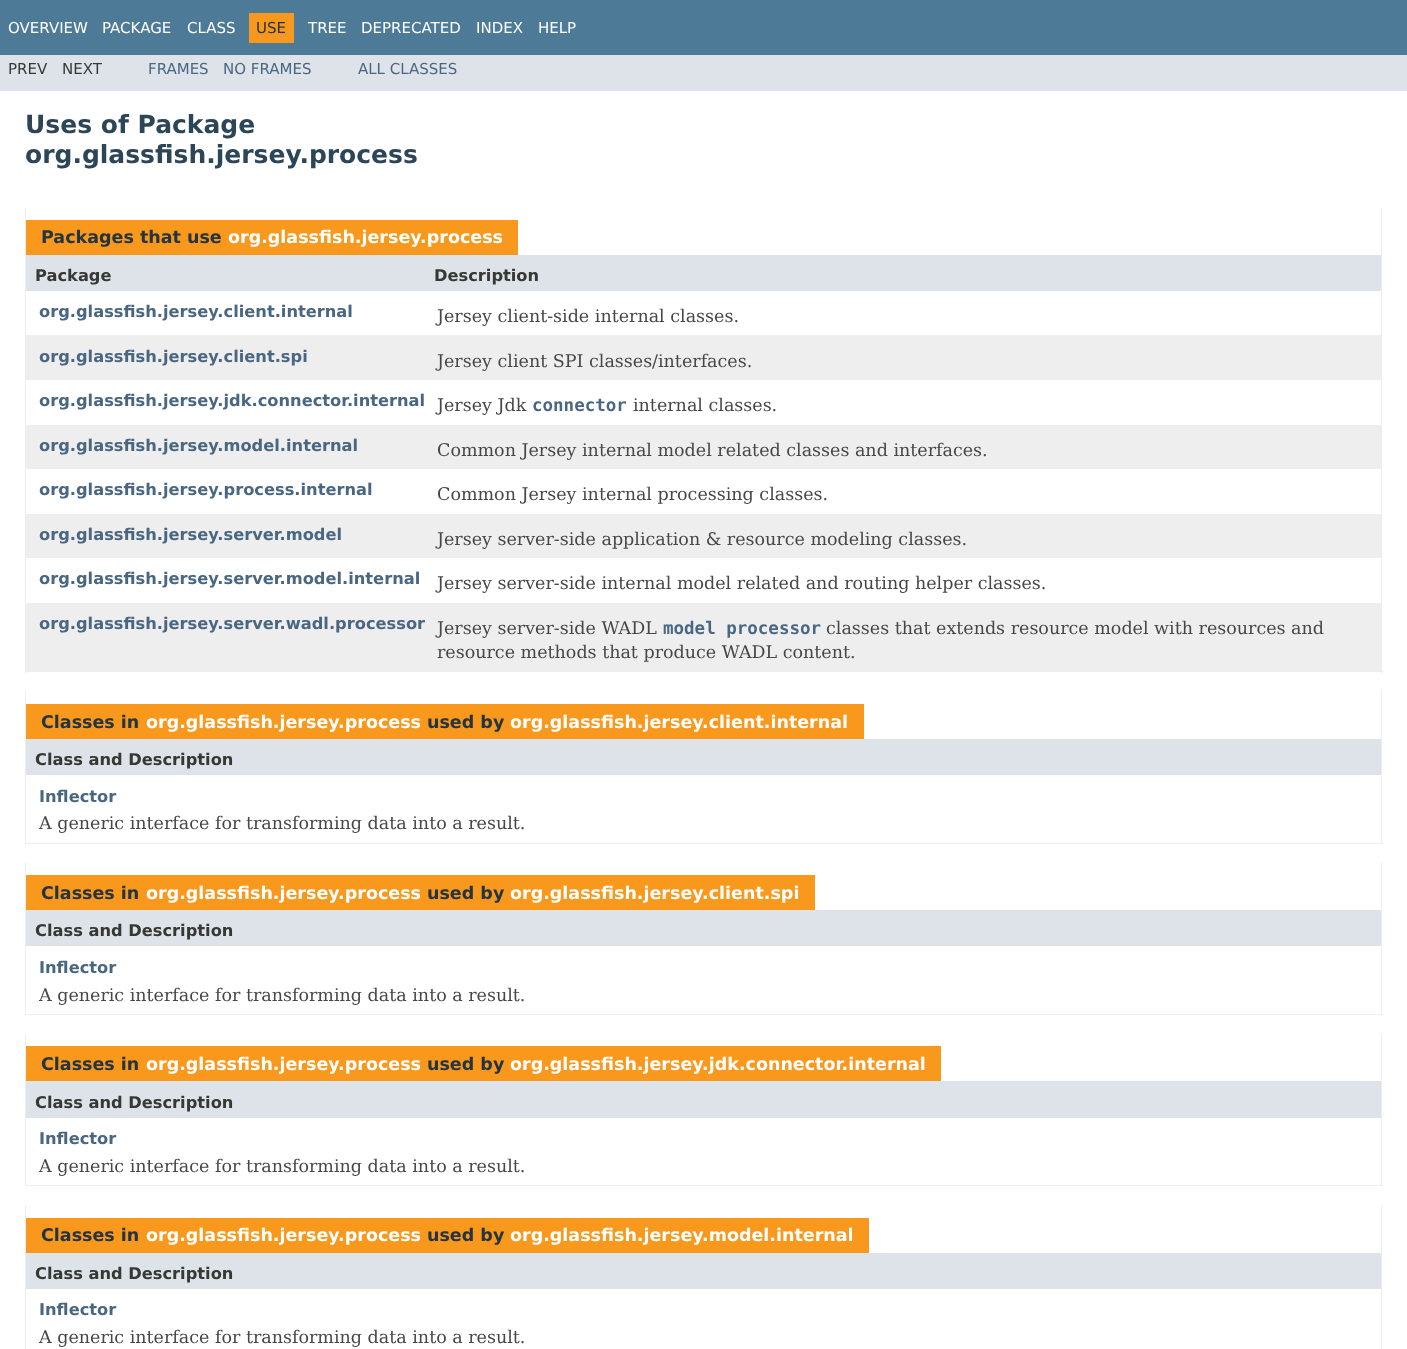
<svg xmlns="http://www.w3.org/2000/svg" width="1407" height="1349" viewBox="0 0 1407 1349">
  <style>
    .t1 { font: 15px DejaVu Sans; fill: #fff; }
    .t2 { font: 15px DejaVu Sans; fill: #253441; }
    .t3 { font: 15px DejaVu Sans; fill: #353833; }
    .t4 { font: 15px DejaVu Sans; fill: #4a6782; }
    .t5 { font: bold 25px DejaVu Sans; fill: #2c4557; }
    .t6 { font: bold 17.5px DejaVu Sans; fill: #253441; }
    .t7 { font: bold 17.5px DejaVu Sans; fill: #fff; }
    .t8 { font: bold 16.25px DejaVu Sans; fill: #353833; }
    .t9 { font: bold 16.25px DejaVu Sans; fill: #4a6782; }
    .t10 { font: 17.5px DejaVu Serif; fill: #474747; }
    .t11 { font: bold 17.5px DejaVu Sans Mono; fill: #4a6782; }
  </style>
  <rect width="100%" height="100%" fill="#fff"/>
  <rect x="0" y="0" width="1407" height="55" fill="#4d7a97"/>
  <text x="8" y="33" class="t1">OVERVIEW</text>
  <text x="102" y="33" class="t1">PACKAGE</text>
  <text x="187" y="33" class="t1">CLASS</text>
  <rect x="249" y="13" width="45" height="30" fill="#f8981d"/>
  <text x="256" y="33" class="t2">USE</text>
  <text x="308" y="33" class="t1">TREE</text>
  <text x="361" y="33" class="t1">DEPRECATED</text>
  <text x="476" y="33" class="t1">INDEX</text>
  <text x="538" y="33" class="t1">HELP</text>
  <rect x="0" y="55" width="1407" height="36" fill="#dee3e9"/>
  <text x="8" y="74" class="t3">PREV</text>
  <text x="62" y="74" class="t3">NEXT</text>
  <text x="148" y="74" class="t4">FRAMES</text>
  <text x="223" y="74" class="t4">NO FRAMES</text>
  <text x="358" y="74" class="t4">ALL CLASSES</text>
  <text x="25" y="133" class="t5">Uses of Package</text>
  <text x="25" y="163" class="t5">org.glassfish.jersey.process</text>
  <rect x="1381" y="208" width="1" height="465" fill="#eee"/>
  <rect x="25" y="671" width="1358" height="1" fill="#eee"/>
  <rect x="25" y="208" width="1" height="465" fill="#eee"/>
  <rect x="26" y="220" width="492" height="35" fill="#f8981d"/>
  <text x="41" y="243" class="t6">Packages that use</text>
  <text x="228" y="243" class="t7">org.glassfish.jersey.process</text>
  <rect x="26" y="255" width="1355" height="36" fill="#dee3e9"/>
  <text x="35" y="281" class="t8">Package</text>
  <text x="434" y="281" class="t8">Description</text>
  <text x="39" y="317" class="t9">org.glassfish.jersey.client.internal</text>
  <text x="437" y="322" class="t10">Jersey client-side internal classes.</text>
  <rect x="26" y="335" width="1355" height="45" fill="#eeeeef"/>
  <text x="39" y="362" class="t9">org.glassfish.jersey.client.spi</text>
  <text x="437" y="367" class="t10">Jersey client SPI classes/interfaces.</text>
  <text x="39" y="406" class="t9">org.glassfish.jersey.jdk.connector.internal</text>
  <text x="437" y="411" class="t10">Jersey Jdk</text>
  <text x="532" y="411" class="t11">connector</text>
  <text x="633" y="411" class="t10">internal classes.</text>
  <rect x="26" y="425" width="1355" height="44" fill="#eeeeef"/>
  <text x="39" y="451" class="t9">org.glassfish.jersey.model.internal</text>
  <text x="437" y="456" class="t10">Common Jersey internal model related classes and interfaces.</text>
  <text x="39" y="495" class="t9">org.glassfish.jersey.process.internal</text>
  <text x="437" y="500" class="t10">Common Jersey internal processing classes.</text>
  <rect x="26" y="514" width="1355" height="44" fill="#eeeeef"/>
  <text x="39" y="540" class="t9">org.glassfish.jersey.server.model</text>
  <text x="437" y="545" class="t10">Jersey server-side application &amp; resource modeling classes.</text>
  <text x="39" y="584" class="t9">org.glassfish.jersey.server.model.internal</text>
  <text x="437" y="589" class="t10">Jersey server-side internal model related and routing helper classes.</text>
  <rect x="26" y="603" width="1355" height="68" fill="#eeeeef"/>
  <text x="39" y="629" class="t9">org.glassfish.jersey.server.wadl.processor</text>
  <text x="437" y="634" class="t10">Jersey server-side WADL</text>
  <text x="663" y="634" class="t11">model processor</text>
  <text x="826" y="634" class="t10">classes that extends resource model with resources and</text>
  <text x="437" y="658" class="t10">resource methods that produce WADL content.</text>
  <rect x="1381" y="691" width="1" height="153" fill="#eee"/>
  <rect x="25" y="843" width="1358" height="1" fill="#eee"/>
  <rect x="25" y="691" width="1" height="153" fill="#eee"/>
  <rect x="26" y="704" width="838" height="35" fill="#f8981d"/>
  <text x="41" y="728" class="t6">Classes in</text>
  <text x="146" y="728" class="t7">org.glassfish.jersey.process</text>
  <text x="427" y="728" class="t6">used by</text>
  <text x="510" y="728" class="t7">org.glassfish.jersey.client.internal</text>
  <rect x="26" y="739" width="1355" height="36" fill="#dee3e9"/>
  <text x="35" y="765" class="t8">Class and Description</text>
  <text x="39" y="802" class="t9">Inflector</text>
  <text x="39" y="829" class="t10">A generic interface for transforming data into a result.</text>
  <rect x="1381" y="863" width="1" height="152" fill="#eee"/>
  <rect x="25" y="1014" width="1358" height="1" fill="#eee"/>
  <rect x="25" y="863" width="1" height="152" fill="#eee"/>
  <rect x="26" y="875" width="789" height="35" fill="#f8981d"/>
  <text x="41" y="899" class="t6">Classes in</text>
  <text x="146" y="899" class="t7">org.glassfish.jersey.process</text>
  <text x="427" y="899" class="t6">used by</text>
  <text x="510" y="899" class="t7">org.glassfish.jersey.client.spi</text>
  <rect x="26" y="910" width="1355" height="36" fill="#dee3e9"/>
  <text x="35" y="936" class="t8">Class and Description</text>
  <text x="39" y="973" class="t9">Inflector</text>
  <text x="39" y="1001" class="t10">A generic interface for transforming data into a result.</text>
  <rect x="1381" y="1034" width="1" height="152" fill="#eee"/>
  <rect x="25" y="1185" width="1358" height="1" fill="#eee"/>
  <rect x="25" y="1034" width="1" height="152" fill="#eee"/>
  <rect x="26" y="1046" width="915" height="35" fill="#f8981d"/>
  <text x="41" y="1070" class="t6">Classes in</text>
  <text x="146" y="1070" class="t7">org.glassfish.jersey.process</text>
  <text x="427" y="1070" class="t6">used by</text>
  <text x="510" y="1070" class="t7">org.glassfish.jersey.jdk.connector.internal</text>
  <rect x="26" y="1081" width="1355" height="37" fill="#dee3e9"/>
  <text x="35" y="1108" class="t8">Class and Description</text>
  <text x="39" y="1144" class="t9">Inflector</text>
  <text x="39" y="1172" class="t10">A generic interface for transforming data into a result.</text>
  <rect x="1381" y="1205" width="1" height="144" fill="#eee"/>
  <rect x="25" y="1205" width="1" height="144" fill="#eee"/>
  <rect x="26" y="1218" width="843" height="35" fill="#f8981d"/>
  <text x="41" y="1241" class="t6">Classes in</text>
  <text x="146" y="1241" class="t7">org.glassfish.jersey.process</text>
  <text x="427" y="1241" class="t6">used by</text>
  <text x="510" y="1241" class="t7">org.glassfish.jersey.model.internal</text>
  <rect x="26" y="1253" width="1355" height="36" fill="#dee3e9"/>
  <text x="35" y="1279" class="t8">Class and Description</text>
  <text x="39" y="1315" class="t9">Inflector</text>
  <text x="39" y="1343" class="t10">A generic interface for transforming data into a result.</text>
</svg>
